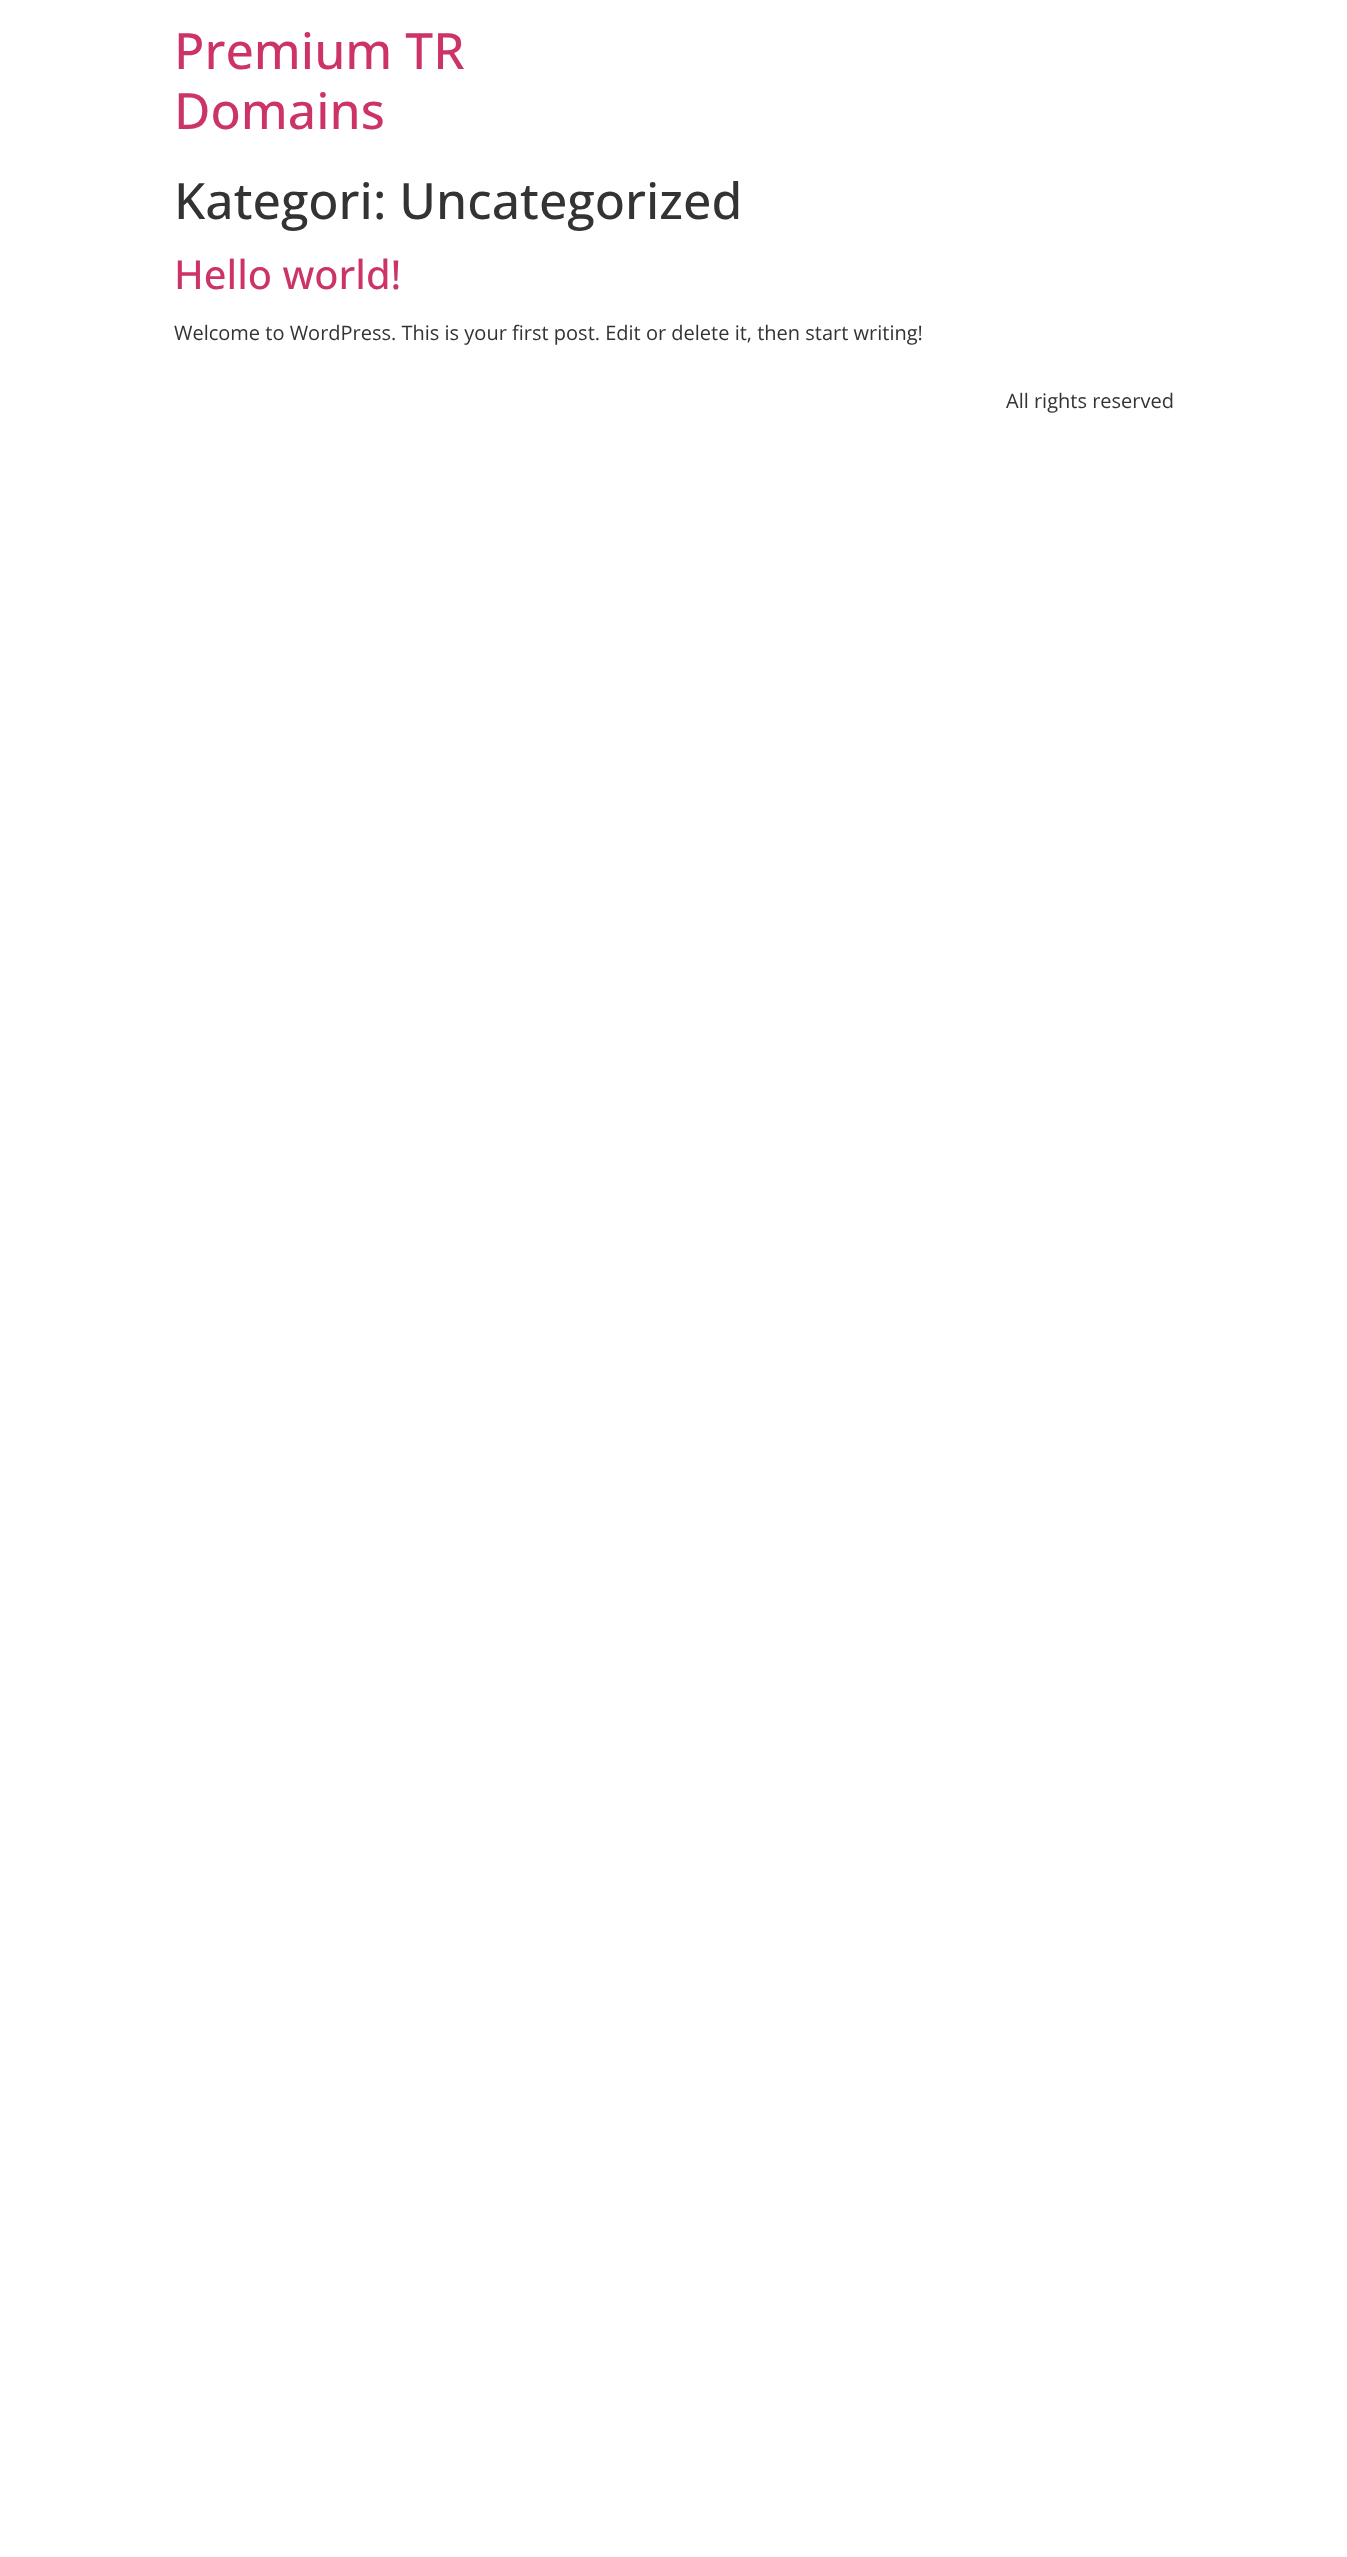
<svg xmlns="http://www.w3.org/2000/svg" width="1347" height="2557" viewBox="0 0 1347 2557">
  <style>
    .t1 { font: 500 50px Open Sans; fill: #c36; }
    .t2 { font: 500 50px Open Sans; fill: #333; }
    .t3 { font: 500 40px Open Sans; fill: #c36; }
    .t4 { font: 20px Open Sans; fill: #333; }
  </style>
  <rect width="100%" height="100%" fill="#fff"/>
  <text x="174" y="69" class="t1">Premium TR</text>
  <text x="174" y="129" class="t1">Domains</text>
  <text x="174" y="219" class="t2">Kategori: Uncategorized</text>
  <text x="174" y="289" class="t3">Hello world!</text>
  <text x="174" y="340" class="t4">Welcome to WordPress. This is your first post. Edit or delete it, then start writing!</text>
  <text x="1006" y="408" class="t4">All rights reserved</text>
</svg>
